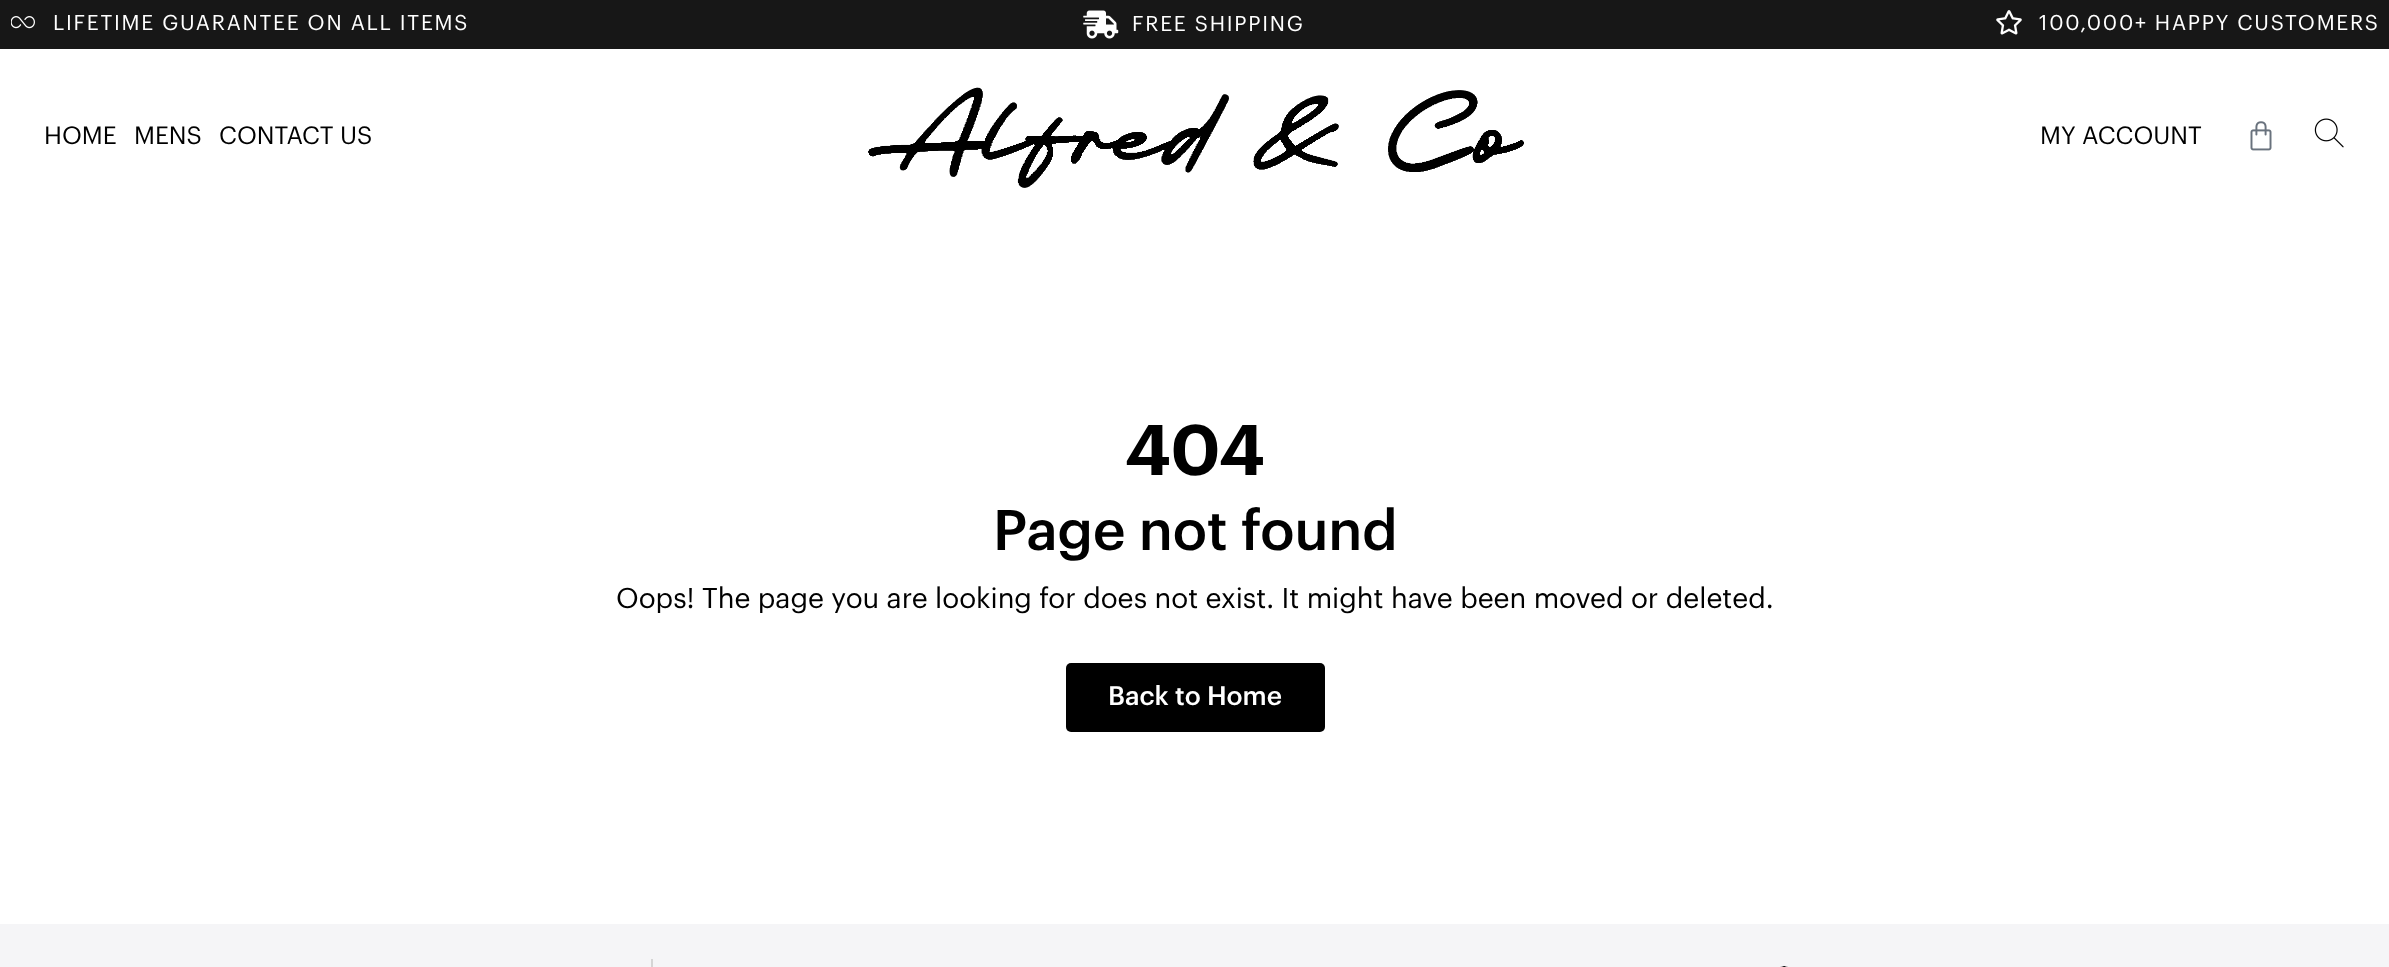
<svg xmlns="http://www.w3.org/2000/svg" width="2389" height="967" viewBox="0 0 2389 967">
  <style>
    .t1 { font: 21px Graphik; letter-spacing: 1.75px; fill: #fff; }
    .t2 { font: 24.5px Graphik; fill: #000; }
    .t3 { font: 600 70px Graphik; fill: #000; }
    .t4 { font: 500 56px Graphik; fill: #000; }
    .t5 { font: 28px Graphik; fill: #000; }
    .t6 { font: 500 26.25px Graphik; fill: #fff; }
  </style>
  <rect width="100%" height="100%" fill="#fff"/>
  <rect x="0" y="0" width="2389" height="49" fill="#171717"/>
  <image x="11" y="16" width="24" height="13" href="images/1.png"/>
  <text x="53" y="30" class="t1">LIFETIME GUARANTEE ON ALL ITEMS</text>
  <image x="1083" y="10" width="36" height="29" href="images/2.png"/>
  <text x="1132" y="31" class="t1">FREE SHIPPING</text>
  <image x="1996" y="10" width="26" height="25" href="images/3.png"/>
  <text x="2039" y="30" class="t1">100,000+ HAPPY CUSTOMERS</text>
  <text x="44" y="144" class="t2">HOME</text>
  <text x="134" y="144" class="t2">MENS</text>
  <text x="219" y="144" class="t2">CONTACT US</text>
  <image x="868" y="87" width="656" height="101" href="images/4.png"/>
  <text x="2040" y="144" class="t2">MY ACCOUNT</text>
  <image x="2250" y="121" width="22" height="30" href="images/5.png"/>
  <image x="2314" y="118" width="30" height="30" href="images/6.png"/>
  <text x="1125" y="475" class="t3">404</text>
  <text x="993" y="550" class="t4">Page not found</text>
  <text x="616" y="608" class="t5">Oops! The page you are looking for does not exist. It might have been moved or deleted.</text>
  <rect x="1066" y="663" width="259" height="69" rx="5" fill="#000"/>
  <text x="1108" y="705" class="t6">Back to Home</text>
  <rect x="0" y="924" width="2389" height="43" fill="#f5f5f7"/>
  <rect x="651" y="959" width="2" height="8" fill="#d5d5d5"/>
  <image x="1780" y="966" width="8" height="1" href="images/7.png"/>
</svg>
